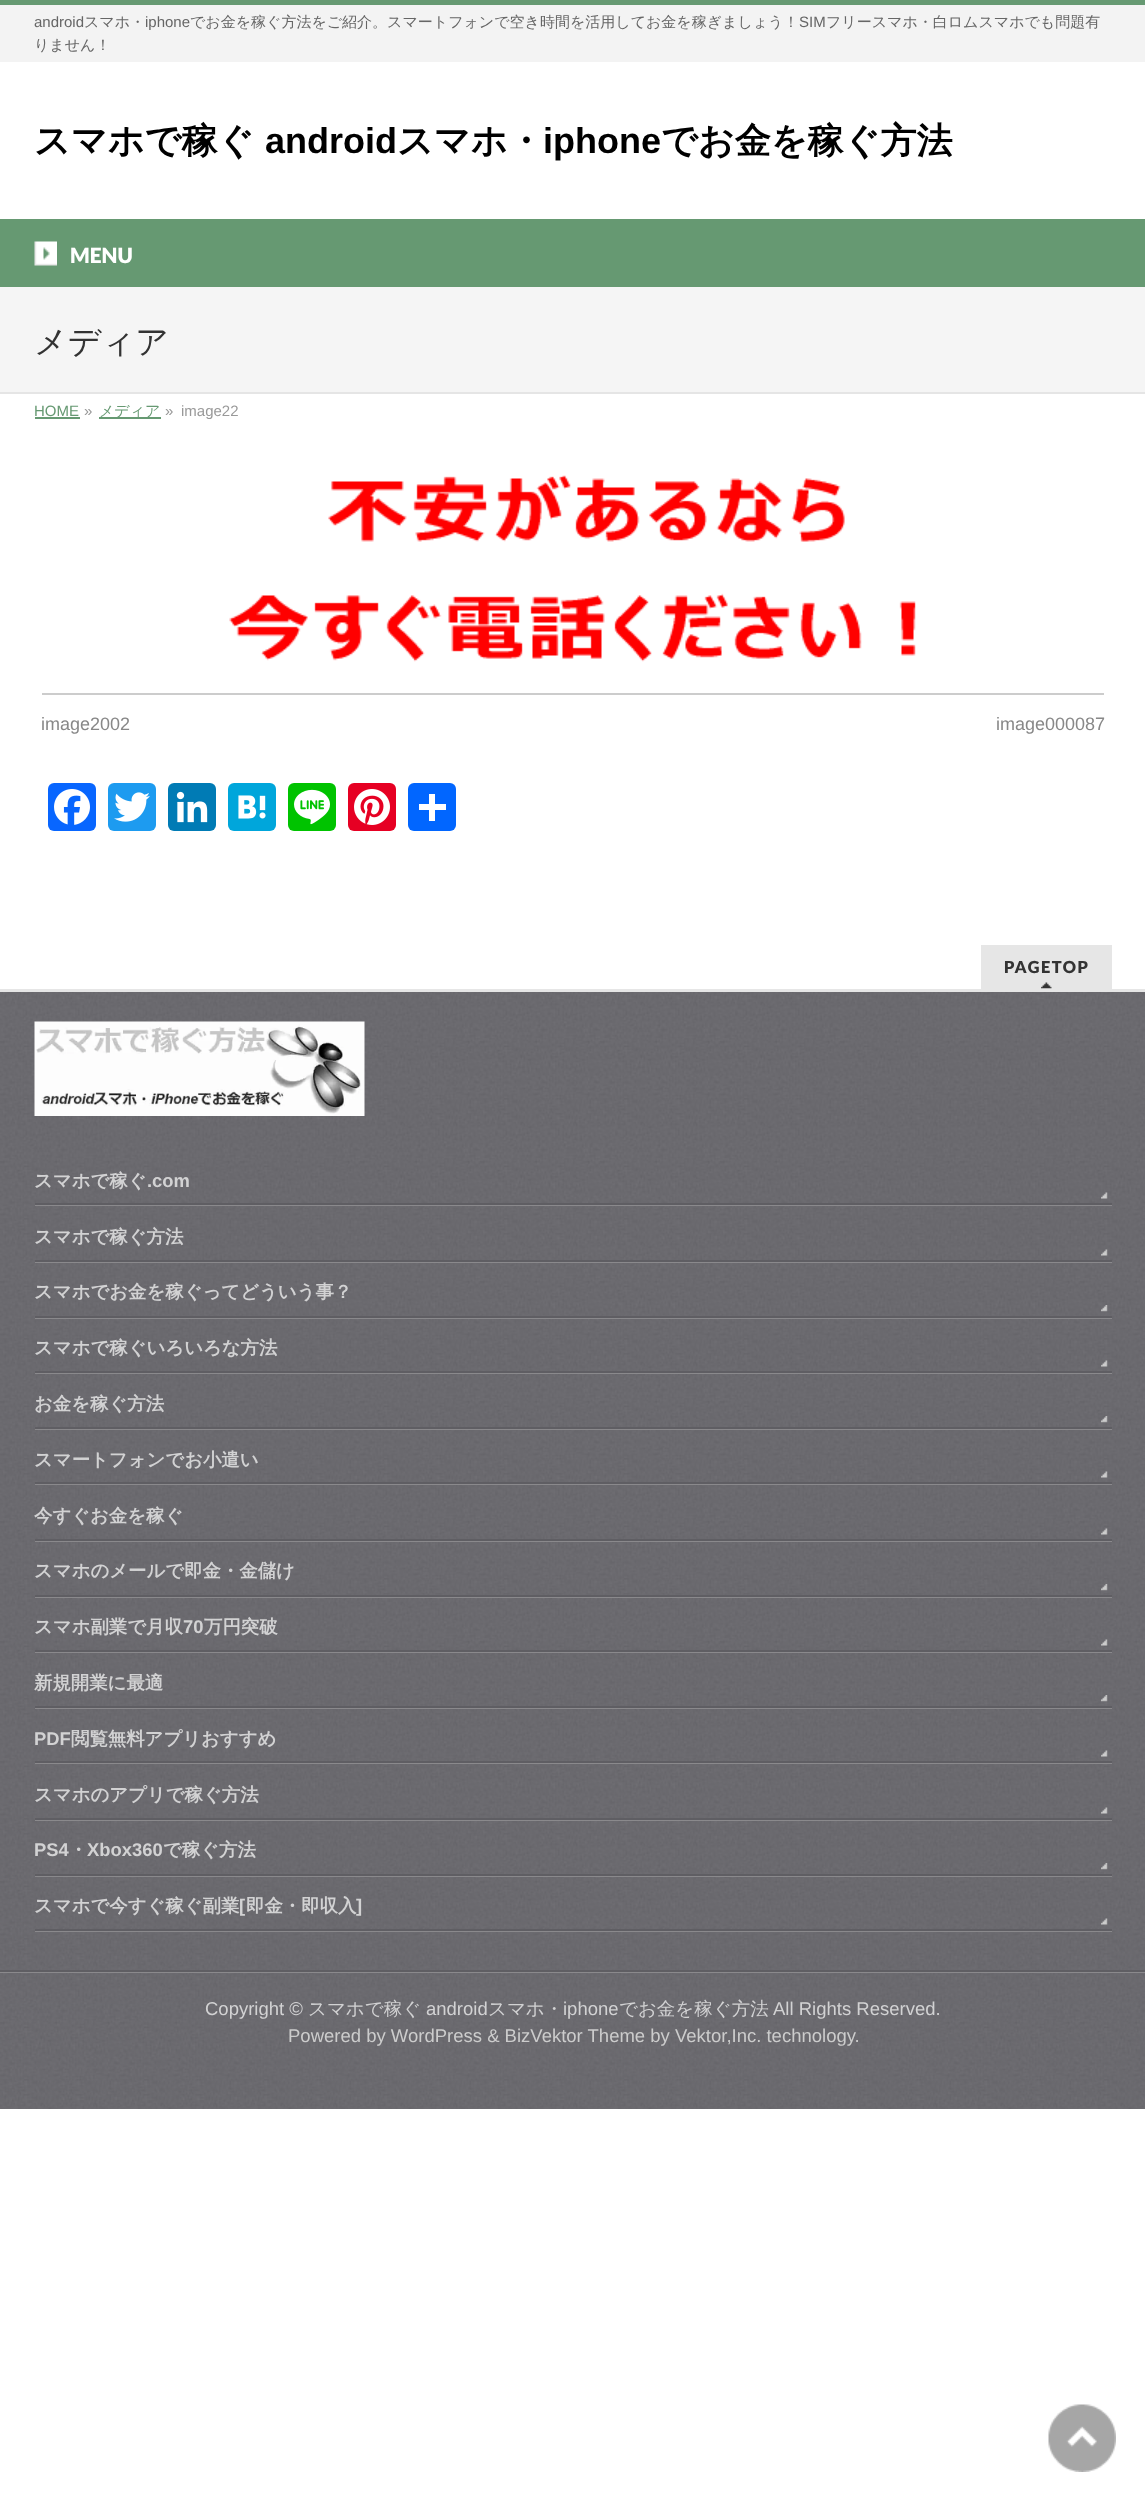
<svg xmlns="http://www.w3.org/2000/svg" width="1145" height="2501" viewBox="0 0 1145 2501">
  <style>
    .t1 { font: 15px Liberation Sans; fill: #666; }
    .t2 { font: 500 15px WenQuanYi Zen Hei; fill: #666; }
    .t3 { font: bold 36px WenQuanYi Zen Hei; fill: #000; }
    .t4 { font: bold 36px Liberation Sans; fill: #000; }
    .t5 { font: 900 21px Lato; fill: #fff; }
    .t6 { font: 500 33px WenQuanYi Zen Hei; fill: #333; }
    .t7 { font: 15px Liberation Sans; fill: #669972; }
    .t8 { font: 15px Liberation Sans; fill: #999; }
    .t9 { font: 500 15px WenQuanYi Zen Hei; fill: #669972; }
    .t10 { font: 18px Liberation Sans; fill: #888; }
    .t11 { font: 900 16.5px Lato; letter-spacing: 1.5px; fill: #333; }
    .t12 { font: bold 18.4px WenQuanYi Zen Hei; fill: #d2d2d3; }
    .t13 { font: bold 18.4px Liberation Sans; fill: #d2d2d3; }
    .t14 { font: 18.5px Liberation Sans; fill: #d2d2d3; }
    .t15 { font: 500 18.5px WenQuanYi Zen Hei; fill: #d2d2d3; }
    .t16 { font: 18.5px Liberation Sans; fill: #ccc; }
  </style>
  <rect width="100%" height="100%" fill="#fff"/>
  <rect x="0" y="5" width="1145" height="57" fill="#f3f3f3"/>
  <rect x="0" y="0" width="1145" height="5" fill="#669972"/>
  <text x="34" y="27" class="t1">android</text>
  <text x="84" y="27" class="t2">スマホ・</text>
  <text x="145" y="27" class="t1">iphone</text>
  <text x="190" y="27" class="t2">でお金を稼ぐ方法をご紹介。スマートフォンで空き時間を活用してお金を稼ぎましょう！</text>
  <text x="799" y="27" class="t1">SIM</text>
  <text x="826" y="27" class="t2">フリースマホ・白ロムスマホでも問題有</text>
  <text x="34" y="50" class="t2">りません！</text>
  <text x="34" y="153" class="t3">スマホで稼ぐ</text>
  <text x="265" y="153" class="t4">android</text>
  <text x="397" y="153" class="t3">スマホ・</text>
  <text x="543" y="153" class="t4">iphone</text>
  <text x="661" y="153" class="t3">でお金を稼ぐ方法</text>
  <rect x="0" y="219" width="1145" height="68" fill="#669972"/>
  <image x="34" y="241" width="23" height="25" href="images/1.png"/>
  <text x="70" y="263" class="t5">MENU</text>
  <rect x="0" y="287" width="1145" height="105" fill="#f5f5f5"/>
  <rect x="0" y="392" width="1145" height="2" fill="#e5e5e5"/>
  <text x="34" y="353" class="t6">メディア</text>
  <text x="34" y="416" class="t7">HOME</text>
  <rect x="35" y="417" width="45" height="2" fill="#669972"/>
  <text x="84" y="416" class="t8">»</text>
  <rect x="99" y="417" width="62" height="2" fill="#669972"/>
  <text x="99" y="416" class="t9">メディア</text>
  <text x="165" y="416" class="t8">»</text>
  <text x="181" y="416" class="t8">image22</text>
  <image x="229" y="475" width="687" height="187" href="images/2.png"/>
  <rect x="42" y="693" width="1062" height="2" fill="#ccc"/>
  <text x="41" y="730" class="t10">image2002</text>
  <text x="996" y="730" class="t10">image000087</text>
  <rect x="48" y="783" width="48" height="48" rx="6" fill="#0866ff"/>
  <image x="54" y="789" width="36" height="36" href="images/3.png"/>
  <rect x="108" y="783" width="48" height="48" rx="6" fill="#1d9bf0"/>
  <image x="114" y="792" width="36" height="30" href="images/4.png"/>
  <rect x="168" y="783" width="48" height="48" rx="6" fill="#007bb5"/>
  <image x="176" y="791" width="32" height="32" href="images/5.png"/>
  <rect x="228" y="783" width="48" height="48" rx="6" fill="#00a6db"/>
  <image x="238" y="795" width="28" height="24" href="images/6.png"/>
  <rect x="288" y="783" width="48" height="48" rx="6" fill="#00c300"/>
  <image x="294" y="789" width="36" height="36" href="images/7.png"/>
  <rect x="348" y="783" width="48" height="48" rx="6" fill="#e60023"/>
  <image x="354" y="789" width="36" height="36" href="images/8.png"/>
  <rect x="408" y="783" width="48" height="48" rx="6" fill="#0166ff"/>
  <rect x="429" y="794" width="6" height="27" fill="#fff"/>
  <rect x="419" y="804" width="27" height="6" fill="#fff"/>
  <rect x="981" y="945" width="131" height="44" fill="#e6e6e6"/>
  <image x="1041" y="982" width="11" height="7" href="images/9.png"/>
  <text x="1004" y="973" class="t11">PAGETOP</text>
  <rect x="0" y="989" width="1145" height="3" fill="#e6e6e6"/>
  <image x="0" y="992" width="1145" height="978" href="images/10.png"/>
  <rect x="0" y="1970" width="1145" height="2" fill="#5f5e63"/>
  <image x="34" y="1021" width="331" height="95" href="images/11.png"/>
  <path d="M35 1204V1206H1112V1160V1204Z" fill="#8a898c"/>
  <image x="1101" y="1192" width="7" height="7" href="images/12.png"/>
  <rect x="35" y="1203" width="1077" height="2" fill="#5f5e63"/>
  <text x="34" y="1187" class="t12">スマホで稼ぐ</text>
  <text x="147" y="1187" class="t13">.com</text>
  <path d="M35 1262V1263H1112V1215V1262Z" fill="#8a898c"/>
  <image x="1101" y="1249" width="7" height="7" href="images/13.png"/>
  <rect x="35" y="1260" width="1077" height="2" fill="#5f5e63"/>
  <text x="34" y="1243" class="t12">スマホで稼ぐ方法</text>
  <path d="M35 1317V1319H1112V1272V1317Z" fill="#8a898c"/>
  <image x="1101" y="1305" width="7" height="7" href="images/14.png"/>
  <rect x="35" y="1316" width="1077" height="2" fill="#5f5e63"/>
  <text x="34" y="1298" class="t12">スマホでお金を稼ぐってどういう事？</text>
  <path d="M35 1372V1374H1112V1328V1372Z" fill="#8a898c"/>
  <image x="1101" y="1360" width="7" height="7" href="images/15.png"/>
  <rect x="35" y="1371" width="1077" height="2" fill="#5f5e63"/>
  <text x="34" y="1354" class="t12">スマホで稼ぐいろいろな方法</text>
  <path d="M35 1428V1430H1112V1383V1428Z" fill="#8a898c"/>
  <image x="1101" y="1416" width="7" height="7" href="images/16.png"/>
  <rect x="35" y="1427" width="1077" height="2" fill="#5f5e63"/>
  <text x="34" y="1410" class="t12">お金を稼ぐ方法</text>
  <path d="M35 1484V1485H1112V1439V1484Z" fill="#8a898c"/>
  <image x="1101" y="1471" width="7" height="7" href="images/17.png"/>
  <rect x="35" y="1482" width="1077" height="2" fill="#5f5e63"/>
  <text x="34" y="1466" class="t12">スマートフォンでお小遣い</text>
  <path d="M35 1540V1542H1112V1494V1540Z" fill="#8a898c"/>
  <image x="1101" y="1528" width="7" height="7" href="images/18.png"/>
  <rect x="35" y="1539" width="1077" height="2" fill="#5f5e63"/>
  <text x="34" y="1522" class="t12">今すぐお金を稼ぐ</text>
  <path d="M35 1596V1598H1112V1551V1596Z" fill="#8a898c"/>
  <image x="1101" y="1584" width="7" height="7" href="images/19.png"/>
  <rect x="35" y="1595" width="1077" height="2" fill="#5f5e63"/>
  <text x="34" y="1577" class="t12">スマホのメールで即金・金儲け</text>
  <path d="M35 1652V1653H1112V1607V1652Z" fill="#8a898c"/>
  <image x="1101" y="1639" width="7" height="7" href="images/20.png"/>
  <rect x="35" y="1650" width="1077" height="2" fill="#5f5e63"/>
  <text x="34" y="1633" class="t12">スマホ副業で月収</text>
  <text x="183" y="1633" class="t13">70</text>
  <text x="204" y="1633" class="t12">万円突破</text>
  <path d="M35 1707V1709H1112V1662V1707Z" fill="#8a898c"/>
  <image x="1101" y="1695" width="7" height="7" href="images/21.png"/>
  <rect x="35" y="1706" width="1077" height="2" fill="#5f5e63"/>
  <text x="34" y="1689" class="t12">新規開業に最適</text>
  <path d="M35 1762V1764H1112V1718V1762Z" fill="#8a898c"/>
  <image x="1101" y="1750" width="7" height="7" href="images/22.png"/>
  <rect x="35" y="1761" width="1077" height="2" fill="#5f5e63"/>
  <text x="34" y="1745" class="t13">PDF</text>
  <text x="71" y="1745" class="t12">閲覧無料アプリおすすめ</text>
  <path d="M35 1820V1821H1112V1773V1820Z" fill="#8a898c"/>
  <image x="1101" y="1807" width="7" height="7" href="images/23.png"/>
  <rect x="35" y="1818" width="1077" height="2" fill="#5f5e63"/>
  <text x="34" y="1801" class="t12">スマホのアプリで稼ぐ方法</text>
  <path d="M35 1875V1877H1112V1830V1875Z" fill="#8a898c"/>
  <image x="1101" y="1863" width="7" height="7" href="images/24.png"/>
  <rect x="35" y="1874" width="1077" height="2" fill="#5f5e63"/>
  <text x="34" y="1856" class="t13">PS4</text>
  <text x="69" y="1856" class="t12">・</text>
  <text x="87" y="1856" class="t13">Xbox360</text>
  <text x="163" y="1856" class="t12">で稼ぐ方法</text>
  <path d="M35 1930V1932H1112V1886V1930Z" fill="#8a898c"/>
  <image x="1101" y="1918" width="7" height="7" href="images/25.png"/>
  <rect x="35" y="1929" width="1077" height="2" fill="#5f5e63"/>
  <text x="34" y="1912" class="t12">スマホで今すぐ稼ぐ副業</text>
  <text x="239" y="1912" class="t13">[</text>
  <text x="246" y="1912" class="t12">即金・即収入</text>
  <text x="356" y="1912" class="t13">]</text>
  <image x="0" y="1973" width="1145" height="136" href="images/26.png"/>
  <rect x="0" y="1972" width="1145" height="1" fill="#8a898c"/>
  <text x="205" y="2015" class="t14">Copyright ©</text>
  <text x="308" y="2015" class="t15">スマホで稼ぐ</text>
  <text x="426" y="2015" class="t14">android</text>
  <text x="488" y="2015" class="t15">スマホ・</text>
  <text x="563" y="2015" class="t14">iphone</text>
  <text x="619" y="2015" class="t15">でお金を稼ぐ方法</text>
  <text x="773" y="2015" class="t14">All Rights Reserved.</text>
  <text x="288" y="2042" class="t16">Powered by WordPress &amp; BizVektor Theme by Vektor,Inc. technology.</text>
  <image x="1048" y="2404" width="68" height="68" href="images/27.png"/>
</svg>
